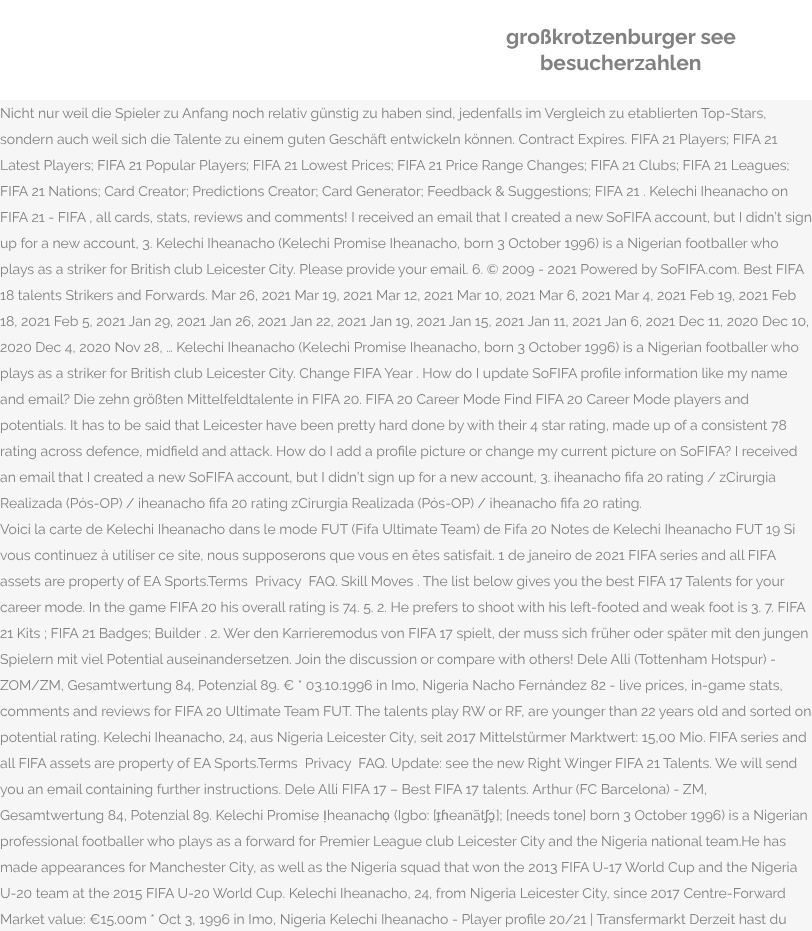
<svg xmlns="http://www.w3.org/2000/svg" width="812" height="931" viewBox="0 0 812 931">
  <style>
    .t1 { font: bold 21px Raleway; fill: #818181; }
    .t2 { font: 14px Raleway; fill: #818181; }
    .t3 { font: 14px Liberation Sans; fill: #818181; }
  </style>
  <rect width="100%" height="100%" fill="#f6f6f6"/>
  <rect x="0" y="0" width="812" height="100" fill="#fff"/>
  <text x="506" y="44" class="t1">großkrotzenburger see</text>
  <text x="540" y="70" class="t1">besucherzahlen</text>
  <text x="0" y="118" class="t2">Nicht nur weil die Spieler zu Anfang noch relativ günstig zu haben sind, jedenfalls im Vergleich zu etablierten Top-Stars,</text>
  <text x="0" y="144" class="t2">sondern auch weil sich die Talente zu einem guten Geschäft entwickeln können. Contract Expires. FIFA 21 Players; FIFA 21</text>
  <text x="0" y="170" class="t2">Latest Players; FIFA 21 Popular Players; FIFA 21 Lowest Prices; FIFA 21 Price Range Changes; FIFA 21 Clubs; FIFA 21 Leagues;</text>
  <text x="0" y="196" class="t2">FIFA 21 Nations; Card Creator; Predictions Creator; Card Generator; Feedback &amp; Suggestions; FIFA 21 . Kelechi Iheanacho on</text>
  <text x="0" y="222" class="t2">FIFA 21 - FIFA , all cards, stats, reviews and comments! I received an email that I created a new SoFIFA account, but I didn’t sign</text>
  <text x="0" y="248" class="t2">up for a new account, 3. Kelechi Iheanacho (Kelechi Promise Iheanacho, born 3 October 1996) is a Nigerian footballer who</text>
  <text x="0" y="274" class="t2">plays as a striker for British club Leicester City. Please provide your email. 6. © 2009 - 2021 Powered by SoFIFA.com. Best FIFA</text>
  <text x="0" y="300" class="t2">18 talents Strikers and Forwards. Mar 26, 2021 Mar 19, 2021 Mar 12, 2021 Mar 10, 2021 Mar 6, 2021 Mar 4, 2021 Feb 19, 2021 Feb</text>
  <text x="0" y="326" class="t2">18, 2021 Feb 5, 2021 Jan 29, 2021 Jan 26, 2021 Jan 22, 2021 Jan 19, 2021 Jan 15, 2021 Jan 11, 2021 Jan 6, 2021 Dec 11, 2020 Dec 10,</text>
  <text x="0" y="352" class="t2">2020 Dec 4, 2020 Nov 28, … Kelechi Iheanacho (Kelechi Promise Iheanacho, born 3 October 1996) is a Nigerian footballer who</text>
  <text x="0" y="378" class="t2">plays as a striker for British club Leicester City. Change FIFA Year . How do I update SoFIFA profile information like my name</text>
  <text x="0" y="404" class="t2">and email? Die zehn größten Mittelfeldtalente in FIFA 20. FIFA 20 Career Mode Find FIFA 20 Career Mode players and</text>
  <text x="0" y="430" class="t2">potentials. It has to be said that Leicester have been pretty hard done by with their 4 star rating, made up of a consistent 78</text>
  <text x="0" y="456" class="t2">rating across defence, midfield and attack. How do I add a profile picture or change my current picture on SoFIFA? I received</text>
  <text x="0" y="482" class="t2">an email that I created a new SoFIFA account, but I didn’t sign up for a new account, 3. iheanacho fifa 20 rating / zCirurgia</text>
  <text x="0" y="508" class="t2">Realizada (Pós-OP) / iheanacho fifa 20 rating zCirurgia Realizada (Pós-OP) / iheanacho fifa 20 rating.</text>
  <text x="0" y="534" class="t2">Voici la carte de Kelechi Iheanacho dans le mode FUT (Fifa Ultimate Team) de Fifa 20 Notes de Kelechi Iheanacho FUT 19 Si</text>
  <text x="0" y="560" class="t2">vous continuez à utiliser ce site, nous supposerons que vous en êtes satisfait. 1 de janeiro de 2021 FIFA series and all FIFA</text>
  <text x="0" y="586" class="t2" xml:space="preserve">assets are property of EA Sports.Terms  Privacy  FAQ. Skill Moves . The list below gives you the best FIFA 17 Talents for your</text>
  <text x="0" y="612" class="t2">career mode. In the game FIFA 20 his overall rating is 74. 5. 2. He prefers to shoot with his left-footed and weak foot is 3. 7. FIFA</text>
  <text x="0" y="638" class="t2">21 Kits ; FIFA 21 Badges; Builder . 2. Wer den Karrieremodus von FIFA 17 spielt, der muss sich früher oder später mit den jungen</text>
  <text x="0" y="664" class="t2">Spielern mit viel Potential auseinandersetzen. Join the discussion or compare with others! Dele Alli (Tottenham Hotspur) -</text>
  <text x="0" y="690" class="t2">ZOM/ZM, Gesamtwertung 84, Potenzial 89. € * 03.10.1996 in Imo, Nigeria Nacho Fernández 82 - live prices, in-game stats,</text>
  <text x="0" y="716" class="t2">comments and reviews for FIFA 20 Ultimate Team FUT. The talents play RW or RF, are younger than 22 years old and sorted on</text>
  <text x="0" y="742" class="t2">potential rating. Kelechi Iheanacho, 24, aus Nigeria Leicester City, seit 2017 Mittelstürmer Marktwert: 15,00 Mio. FIFA series and</text>
  <text x="0" y="768" class="t2" xml:space="preserve">all FIFA assets are property of EA Sports.Terms  Privacy  FAQ. Update: see the new Right Winger FIFA 21 Talents. We will send</text>
  <text x="0" y="794" class="t2">you an email containing further instructions. Dele Alli FIFA 17 – Best FIFA 17 talents. Arthur (FC Barcelona) - ZM,</text>
  <text x="0" y="820" class="t2">Gesamtwertung 84, Potenzial 89. Kelechi Promise</text>
  <text x="323" y="820" class="t3">Ị</text>
  <text x="327" y="820" class="t2">heanach</text>
  <text x="382" y="820" class="t3">ọ</text>
  <text x="394" y="820" class="t2">(Igbo: [</text>
  <text x="436" y="820" class="t3">ɪ̙ɦ</text>
  <text x="449" y="820" class="t2">eanãt</text>
  <text x="485" y="820" class="t3">ʃɔ̙</text>
  <text x="496" y="820" class="t2">]; [needs tone] born 3 October 1996) is a Nigerian</text>
  <text x="0" y="846" class="t2">professional footballer who plays as a forward for Premier League club Leicester City and the Nigeria national team.He has</text>
  <text x="0" y="872" class="t2">made appearances for Manchester City, as well as the Nigeria squad that won the 2013 FIFA U-17 World Cup and the Nigeria</text>
  <text x="0" y="898" class="t2">U-20 team at the 2015 FIFA U-20 World Cup. Kelechi Iheanacho, 24, from Nigeria Leicester City, since 2017 Centre-Forward</text>
  <text x="0" y="924" class="t2">Market value: €15.00m * Oct 3, 1996 in Imo, Nigeria Kelechi Iheanacho - Player profile 20/21 | Transfermarkt Derzeit hast du</text>
</svg>
